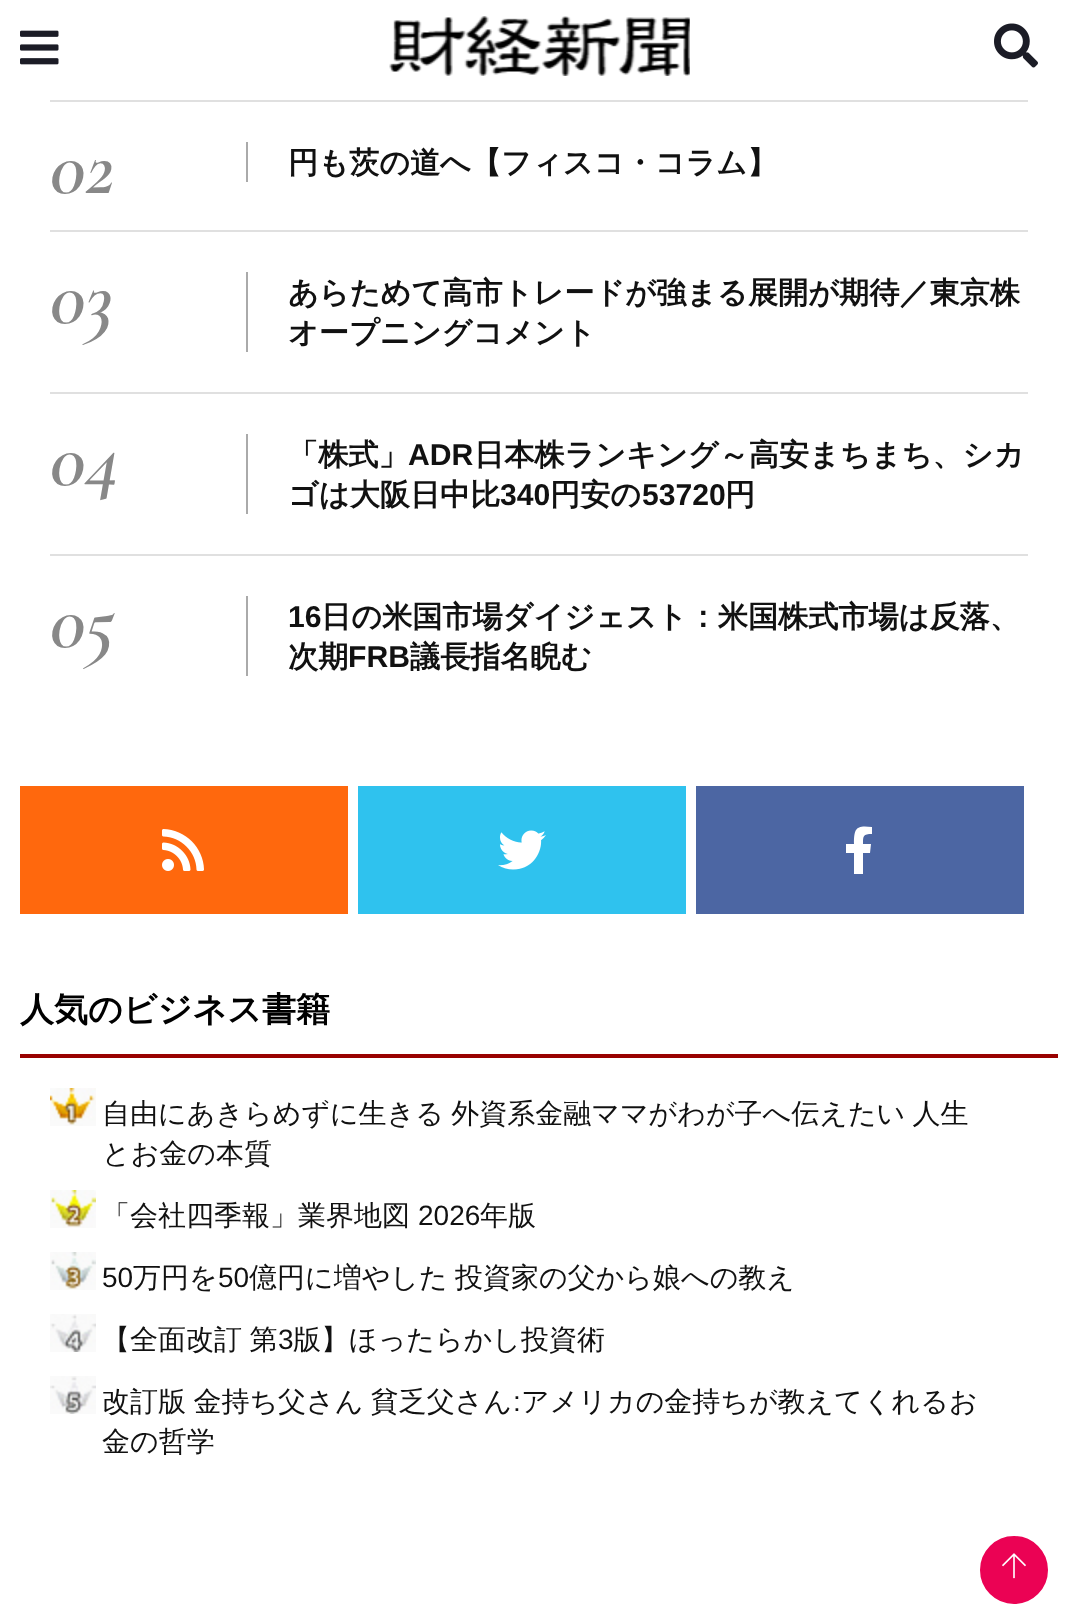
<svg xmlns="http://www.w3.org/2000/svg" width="1077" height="1623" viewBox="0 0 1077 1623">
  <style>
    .t1 { font: italic 600 80px Cormorant Garamond; fill: #888; }
    .t2 { font: bold 30.15px WenQuanYi Zen Hei; fill: #111; }
    .t3 { font: bold 30.15px Liberation Sans; fill: #111; }
    .t4 { font: bold 34px WenQuanYi Zen Hei; fill: #000; }
    .t5 { font: 500 28px WenQuanYi Zen Hei; fill: #111; }
    .t6 { font: 28px Liberation Sans; fill: #111; }
  </style>
  <rect width="100%" height="100%" fill="#fff"/>
  <image x="20" y="30" width="39" height="35" href="images/1.png"/>
  <image x="389" y="16" width="301" height="60" href="images/2.png"/>
  <image x="994" y="23" width="44" height="45" href="images/3.png"/>
  <rect x="50" y="100" width="978" height="2" fill="#e0e0e0"/>
  <rect x="50" y="230" width="978" height="2" fill="#e0e0e0"/>
  <text x="50" y="193" class="t1">02</text>
  <rect x="246" y="142" width="2" height="40" fill="#aaa"/>
  <text x="288" y="173" class="t2">円も茨の道へ【フィスコ・コラム】</text>
  <rect x="50" y="392" width="978" height="2" fill="#e0e0e0"/>
  <text x="50" y="323" class="t1">03</text>
  <rect x="246" y="272" width="2" height="80" fill="#aaa"/>
  <text x="288" y="303" class="t2">あらためて高市トレードが強まる展開が期待／東京株</text>
  <text x="288" y="343" class="t2">オープニングコメント</text>
  <rect x="50" y="554" width="978" height="2" fill="#e0e0e0"/>
  <text x="50" y="485" class="t1">04</text>
  <rect x="246" y="434" width="2" height="80" fill="#aaa"/>
  <text x="288" y="465" class="t2">「株式」</text>
  <text x="408" y="465" class="t3">ADR</text>
  <text x="474" y="465" class="t2">日本株ランキング～高安まちまち、シカ</text>
  <text x="288" y="505" class="t2">ゴは大阪日中比</text>
  <text x="500" y="505" class="t3">340</text>
  <text x="550" y="505" class="t2">円安の</text>
  <text x="642" y="505" class="t3">53720</text>
  <text x="725" y="505" class="t2">円</text>
  <text x="50" y="647" class="t1">05</text>
  <rect x="246" y="596" width="2" height="80" fill="#aaa"/>
  <text x="288" y="627" class="t3">16</text>
  <text x="321" y="627" class="t2">日の米国市場ダイジェスト：米国株式市場は反落、</text>
  <text x="288" y="667" class="t2">次期</text>
  <text x="348" y="667" class="t3">FRB</text>
  <text x="410" y="667" class="t2">議長指名睨む</text>
  <rect x="20" y="786" width="328" height="128" fill="#ff680d"/>
  <image x="162" y="829" width="42" height="42" href="images/4.png"/>
  <rect x="358" y="786" width="328" height="128" fill="#2fc2ee"/>
  <image x="498" y="830" width="48" height="40" href="images/5.png"/>
  <rect x="696" y="786" width="328" height="128" fill="#4c66a3"/>
  <path d="M870 853H863V874H854V853H846V844H854C854 828 856 825 872 827V834C863 834 863 836 863 844H871Z" fill="#fff"/>
  <rect x="20" y="1054" width="1038" height="4" fill="#990100"/>
  <text x="20" y="1021" class="t4">人気のビジネス書籍</text>
  <image x="50" y="1088" width="46" height="38" href="images/6.png"/>
  <text x="102" y="1123" word-spacing="-1" class="t5">自由にあきらめずに生きる 外資系金融ママがわが子へ伝えたい 人生</text>
  <text x="102" y="1163" class="t5">とお金の本質</text>
  <image x="50" y="1190" width="46" height="38" href="images/7.png"/>
  <text x="102" y="1225" class="t5">「会社四季報」業界地図</text>
  <text x="418" y="1225" class="t6">2026</text>
  <text x="480" y="1225" class="t5">年版</text>
  <image x="50" y="1252" width="46" height="38" href="images/8.png"/>
  <text x="102" y="1287" class="t6">50</text>
  <text x="133" y="1287" class="t5">万円を</text>
  <text x="218" y="1287" class="t6">50</text>
  <text x="249" y="1287" word-spacing="-1" class="t5">億円に増やした 投資家の父から娘への教え</text>
  <image x="50" y="1314" width="46" height="38" href="images/9.png"/>
  <text x="102" y="1349" word-spacing="-1" class="t5">【全面改訂 第</text>
  <text x="278" y="1349" class="t6">3</text>
  <text x="293" y="1349" class="t5">版】ほったらかし投資術</text>
  <image x="50" y="1376" width="46" height="38" href="images/10.png"/>
  <text x="102" y="1411" word-spacing="-1" class="t5">改訂版 金持ち父さん 貧乏父さん</text>
  <text x="513" y="1411" class="t6">:</text>
  <text x="521" y="1411" class="t5">アメリカの金持ちが教えてくれるお</text>
  <text x="102" y="1451" class="t5">金の哲学</text>
  <circle cx="1014" cy="1570" r="33" fill="#eb0254" stroke="#eb0254" stroke-width="2"/>
  <image x="1002" y="1553" width="24" height="26" href="images/11.png"/>
</svg>
